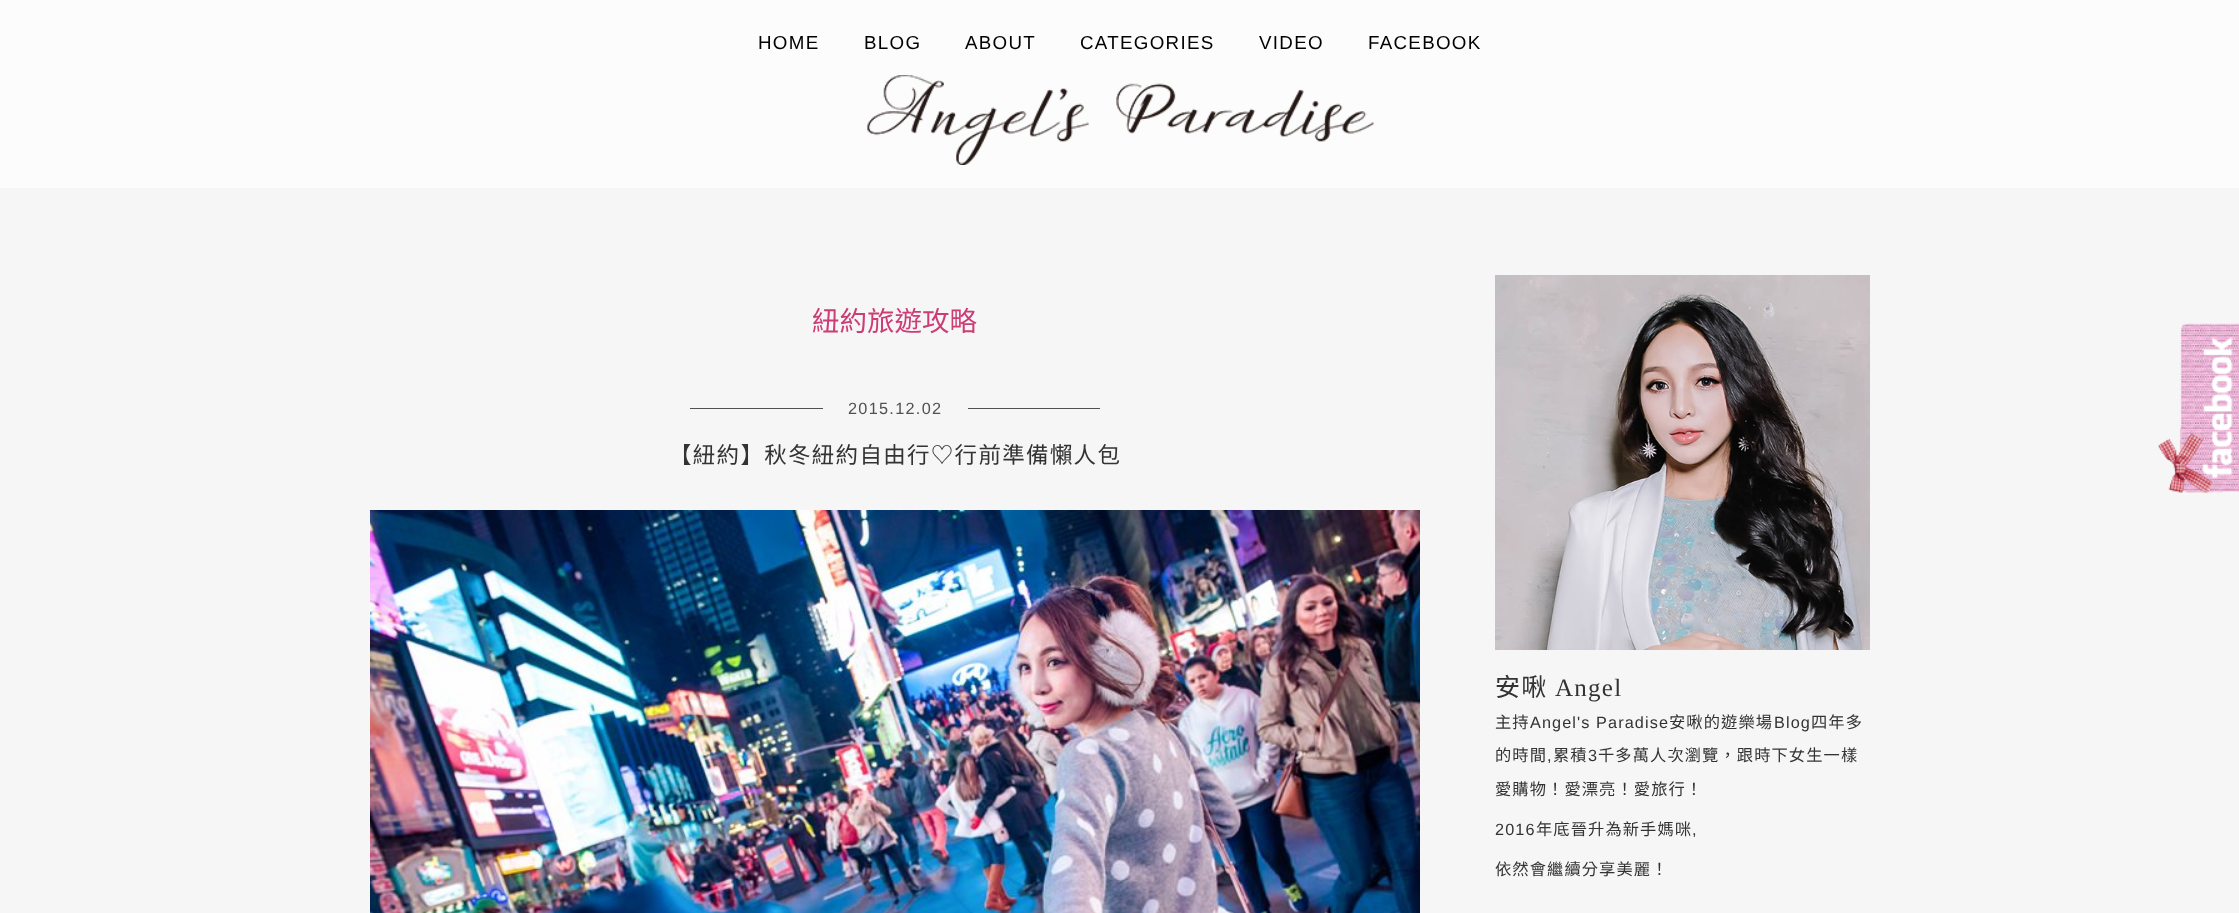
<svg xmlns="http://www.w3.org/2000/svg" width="2239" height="913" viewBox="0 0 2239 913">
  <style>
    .t1 { font: 18.75px Liberation Sans; letter-spacing: 1.3px; fill: #000; }
    .t2 { font: 27.5px Noto Sans CJK TC; fill: #cc3c75; }
    .t3 { font: 16.25px Liberation Sans; letter-spacing: 1.3px; fill: #525050; }
    .t4 { font: 22.5px Noto Sans CJK TC; letter-spacing: 1.3px; fill: #333; }
    .t5 { font: 25px Noto Sans CJK TC; letter-spacing: 1.25px; fill: #333; }
    .t6 { font: 25px Liberation Serif; letter-spacing: 1.25px; fill: #333; }
    .t7 { font: 16.25px Noto Sans CJK TC; letter-spacing: 1.1px; fill: #333; }
    .t8 { font: 16.25px Liberation Sans; letter-spacing: 1.1px; fill: #333; }
  </style>
  <rect width="100%" height="100%" fill="#f6f6f6"/>
  <rect x="0" y="0" width="2239" height="188" fill="#fcfcfc"/>
  <text x="758" y="49" class="t1">HOME</text>
  <text x="864" y="49" class="t1">BLOG</text>
  <text x="965" y="49" class="t1">ABOUT</text>
  <text x="1080" y="49" class="t1">CATEGORIES</text>
  <text x="1259" y="49" class="t1">VIDEO</text>
  <text x="1368" y="49" class="t1">FACEBOOK</text>
  <image x="867" y="75" width="507" height="90" href="images/1.png"/>
  <text x="812" y="331" class="t2">紐約旅遊攻略</text>
  <rect x="690" y="408" width="410" height="1" fill="#525050"/>
  <rect x="823" y="408" width="145" height="1" fill="#f6f6f6"/>
  <text x="848" y="414" class="t3">2015.12.02</text>
  <text x="669" y="463" class="t4">【紐約】秋冬紐約自由行♡行前準備懶人包</text>
  <image x="370" y="510" width="1050" height="403" href="images/2.png"/>
  <image x="1495" y="275" width="375" height="375" href="images/3.png"/>
  <text x="1495" y="696" class="t5">安啾</text>
  <text x="1555" y="696" class="t6">Angel</text>
  <text x="1495" y="728" class="t7">主持</text>
  <text x="1530" y="728" class="t8">Angel's Paradise</text>
  <text x="1669" y="728" class="t7">安啾的遊樂場</text>
  <text x="1774" y="728" class="t8">Blog</text>
  <text x="1811" y="728" class="t7">四年多</text>
  <text x="1495" y="761" class="t7">的時間</text>
  <text x="1547" y="761" class="t8">,</text>
  <text x="1553" y="761" class="t7">累積</text>
  <text x="1588" y="761" class="t8">3</text>
  <text x="1598" y="761" class="t7">千多萬人次瀏覽，跟時下女生一樣</text>
  <text x="1495" y="795" class="t7">愛購物！愛漂亮！愛旅行！</text>
  <text x="1495" y="835" class="t8">2016</text>
  <text x="1536" y="835" class="t7">年底晉升為新手媽咪</text>
  <text x="1692" y="835" class="t8">,</text>
  <text x="1495" y="875" class="t7">依然會繼續分享美麗！</text>
  <image x="2158" y="323" width="81" height="171" href="images/4.png"/>
</svg>
